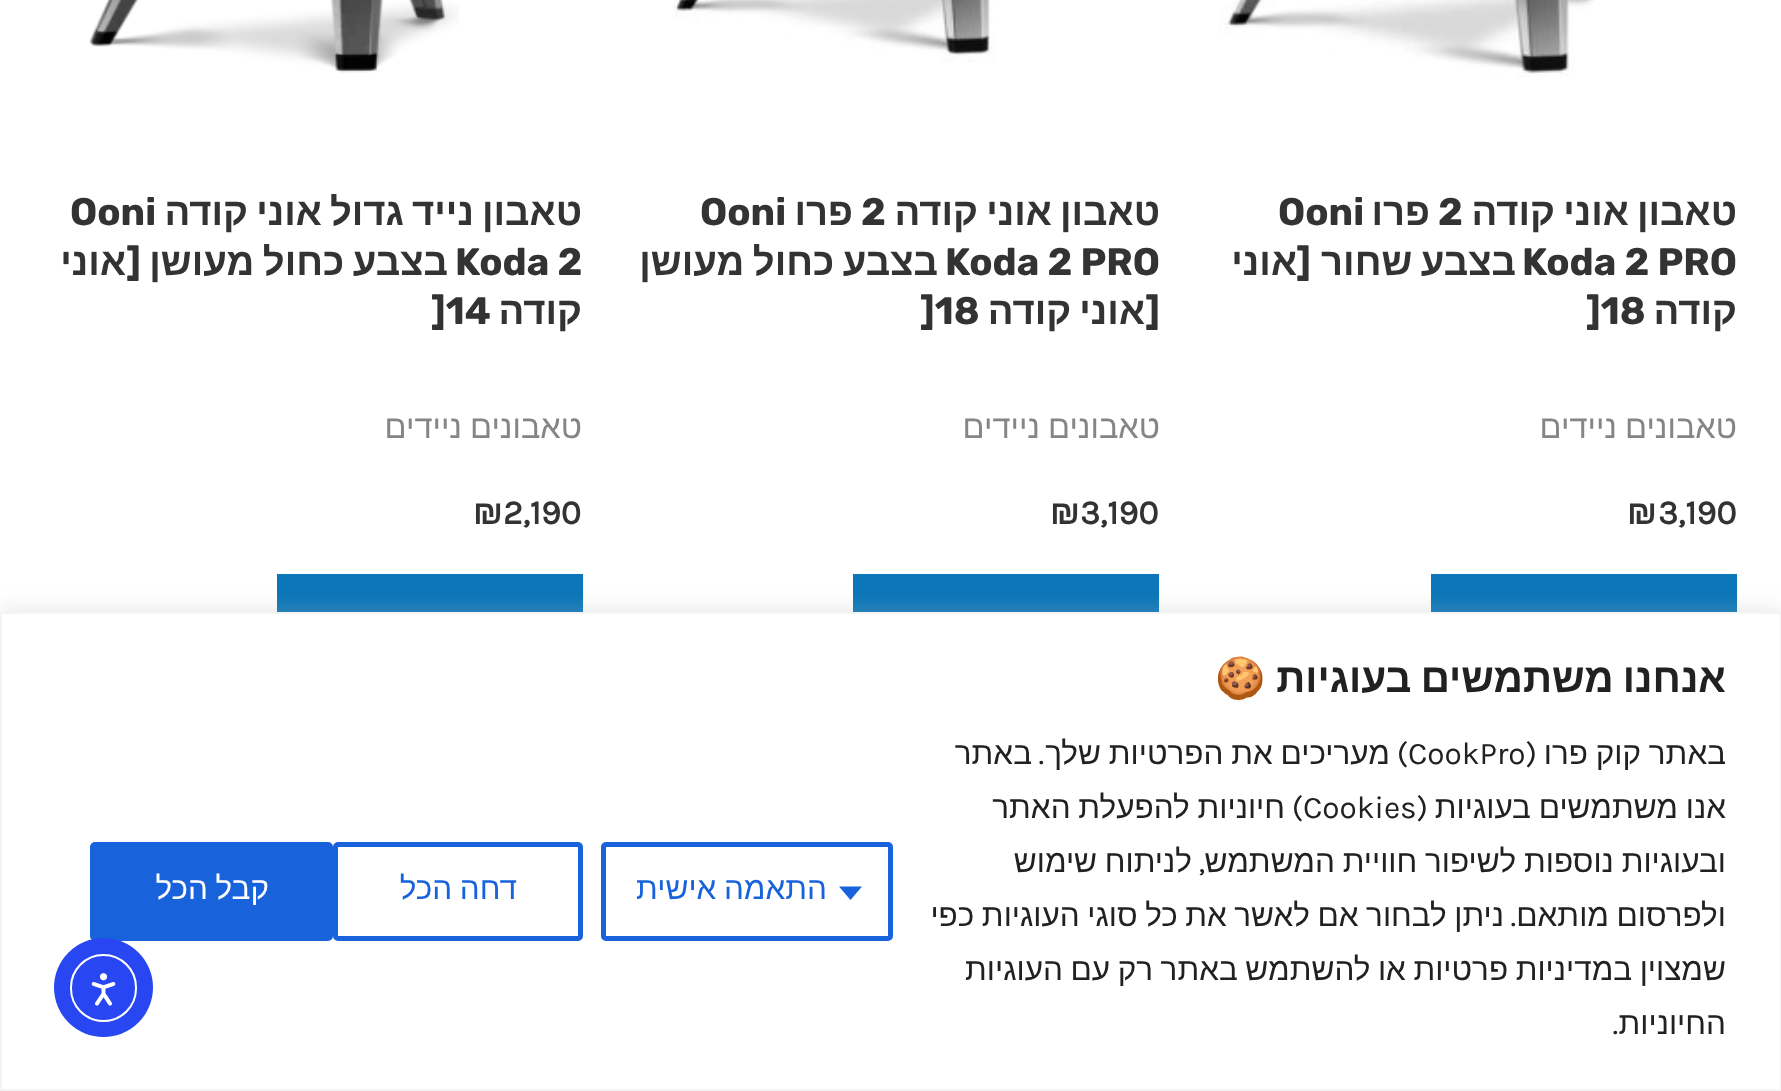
<svg xmlns="http://www.w3.org/2000/svg" width="1781" height="1091" viewBox="0 0 1781 1091">
  <style>
    .t1 { font: bold 38.25px Liberation Sans; direction: rtl; fill: #333; }
    .t2 { font: bold 38.25px Rubik; fill: #333; }
    .t3 { font: bold 38.25px Rubik; direction: rtl; fill: #333; }
    .t4 { font: 32.5px Liberation Sans; direction: rtl; fill: #858585; }
    .t5 { font: bold 34px Karla; fill: #333; }
    .t6 { font: bold 34px Liberation Sans; fill: #333; }
    .t7 { font: bold 40.5px Liberation Sans; direction: rtl; fill: #212121; }
    .t8 { font: bold 40.5px Noto Color Emoji; direction: rtl; fill: #212121; }
    .t9 { font: 31.5px Liberation Sans; direction: rtl; fill: #212121; }
    .t10 { font: 31.5px Karla; direction: rtl; fill: #212121; }
    .t11 { font: 31.5px Karla; fill: #212121; }
    .t12 { font: 31.5px Liberation Sans; direction: rtl; fill: #1863dc; }
    .t13 { font: 31.5px Liberation Sans; direction: rtl; fill: #fff; }
  </style>
  <rect width="100%" height="100%" fill="#fff"/>
  <image x="1220" y="0" width="375" height="77" href="images/1.png"/>
  <text x="1737" y="225" word-spacing="-2.5" class="t1">טאבון אוני קודה</text>
  <text x="1438" y="225" class="t2">2</text>
  <text x="1430" y="225" class="t1">פרו</text>
  <text x="1278" y="225" class="t2">Ooni</text>
  <text x="1522" y="275" class="t2">Koda 2 PRO</text>
  <text x="1516" y="275" word-spacing="-2" class="t1">בצבע שחור</text>
  <text x="1311" y="275" class="t3">[</text>
  <text x="1297" y="275" class="t1">אוני</text>
  <text x="1737" y="324" class="t1">קודה</text>
  <text x="1586" y="324" class="t2">]18</text>
  <text x="1737" y="438" word-spacing="-1" class="t4">טאבונים ניידים</text>
  <text x="1658" y="524" class="t5">3,190</text>
  <text x="1627" y="524" class="t6">₪</text>
  <rect x="1431" y="574" width="306" height="38" fill="#0b76b9"/>
  <image x="674" y="0" width="322" height="63" href="images/2.png"/>
  <text x="1160" y="225" word-spacing="-2.5" class="t1">טאבון אוני קודה</text>
  <text x="861" y="225" class="t2">2</text>
  <text x="853" y="225" class="t1">פרו</text>
  <text x="700" y="225" class="t2">Ooni</text>
  <text x="945" y="275" class="t2">Koda 2 PRO</text>
  <text x="938" y="275" word-spacing="-2" class="t1">בצבע כחול מעושן</text>
  <text x="1160" y="324" class="t3">[</text>
  <text x="1145" y="324" word-spacing="-2.5" class="t1">אוני קודה</text>
  <text x="920" y="324" class="t2">]18</text>
  <text x="1160" y="438" word-spacing="-1" class="t4">טאבונים ניידים</text>
  <text x="1080" y="524" class="t5">3,190</text>
  <text x="1050" y="524" class="t6">₪</text>
  <rect x="853" y="574" width="306" height="38" fill="#0b76b9"/>
  <image x="89" y="0" width="370" height="73" href="images/3.png"/>
  <text x="582" y="225" word-spacing="-2.5" class="t1">טאבון נייד גדול אוני קודה</text>
  <text x="70" y="225" class="t2">Ooni</text>
  <text x="455" y="275" class="t2">Koda 2</text>
  <text x="448" y="275" word-spacing="-2" class="t1">בצבע כחול מעושן</text>
  <text x="141" y="275" class="t3">[</text>
  <text x="126" y="275" class="t1">אוני</text>
  <text x="582" y="324" class="t1">קודה</text>
  <text x="431" y="324" class="t2">]14</text>
  <text x="582" y="438" word-spacing="-1" class="t4">טאבונים ניידים</text>
  <text x="503" y="524" class="t5">2,190</text>
  <text x="473" y="524" class="t6">₪</text>
  <rect x="277" y="574" width="306" height="38" fill="#0b76b9"/>
  <rect x="0" y="610" width="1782" height="479" fill="#acabab4d" filter="blur(11px)"/>
  <rect x="1" y="613" width="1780" height="477" fill="#fff" stroke="#f4f4f4" stroke-width="2"/>
  <text x="1726" y="692" word-spacing="-2" class="t7">אנחנו משתמשים בעוגיות</text>
  <text x="1266" y="692" class="t8">🍪</text>
  <text x="1726" y="764" word-spacing="-1" class="t9">באתר קוק פרו</text>
  <text x="1537" y="764" class="t10">(</text>
  <text x="1408" y="764" class="t11">CookPro</text>
  <text x="1408" y="764" class="t10">)</text>
  <text x="1390" y="764" word-spacing="-1" class="t9">מעריכים את הפרטיות שלך</text>
  <text x="1044" y="764" class="t10">.</text>
  <text x="1032" y="764" class="t9">באתר</text>
  <text x="1726" y="818" word-spacing="-1" class="t9">אנו משתמשים בעוגיות</text>
  <text x="1428" y="818" class="t10">(</text>
  <text x="1303" y="818" class="t11">Cookies</text>
  <text x="1303" y="818" class="t10">)</text>
  <text x="1285" y="818" word-spacing="-1" class="t9">חיוניות להפעלת האתר</text>
  <text x="1726" y="872" word-spacing="-1" class="t9">ובעוגיות נוספות לשיפור חוויית המשתמש</text>
  <text x="1205" y="872" class="t10">,</text>
  <text x="1192" y="872" word-spacing="-1" class="t9">לניתוח שימוש</text>
  <text x="1726" y="926" word-spacing="-1.25" class="t9">ולפרסום מותאם</text>
  <text x="1516" y="926" class="t10">.</text>
  <text x="1504" y="926" word-spacing="-1.25" class="t9">ניתן לבחור אם לאשר את כל סוגי העוגיות כפי</text>
  <text x="1726" y="980" word-spacing="-1.25" class="t9">שמצוין במדיניות פרטיות או להשתמש באתר רק עם העוגיות</text>
  <text x="1726" y="1034" class="t9">החיוניות</text>
  <text x="1618" y="1034" class="t10">.</text>
  <rect x="603.5" y="844.5" width="287" height="94" rx="2.5" fill="none" stroke="#1863dc" stroke-width="5"/>
  <path d="M839 886.5H862L850.5 900Z" fill="#1863dc"/>
  <text x="827" y="899" word-spacing="-1.25" class="t12">התאמה אישית</text>
  <rect x="335.5" y="844.5" width="245" height="94" rx="2.5" fill="none" stroke="#1863dc" stroke-width="5"/>
  <text x="517" y="899" word-spacing="-1.25" class="t12">דחה הכל</text>
  <rect x="92.5" y="844.5" width="238" height="94" rx="2.5" fill="#1863dc" stroke="#1863dc" stroke-width="5"/>
  <text x="269" y="899" word-spacing="-1.25" class="t13">קבל הכל</text>
  <circle cx="103.5" cy="987.5" r="49.5" fill="#2847f3"/>
  <rect x="71" y="955" width="65" height="66" rx="32.5" fill="none" stroke="#fff" stroke-width="2"/>
  <image x="91" y="973" width="25" height="33" href="images/4.png"/>
</svg>
